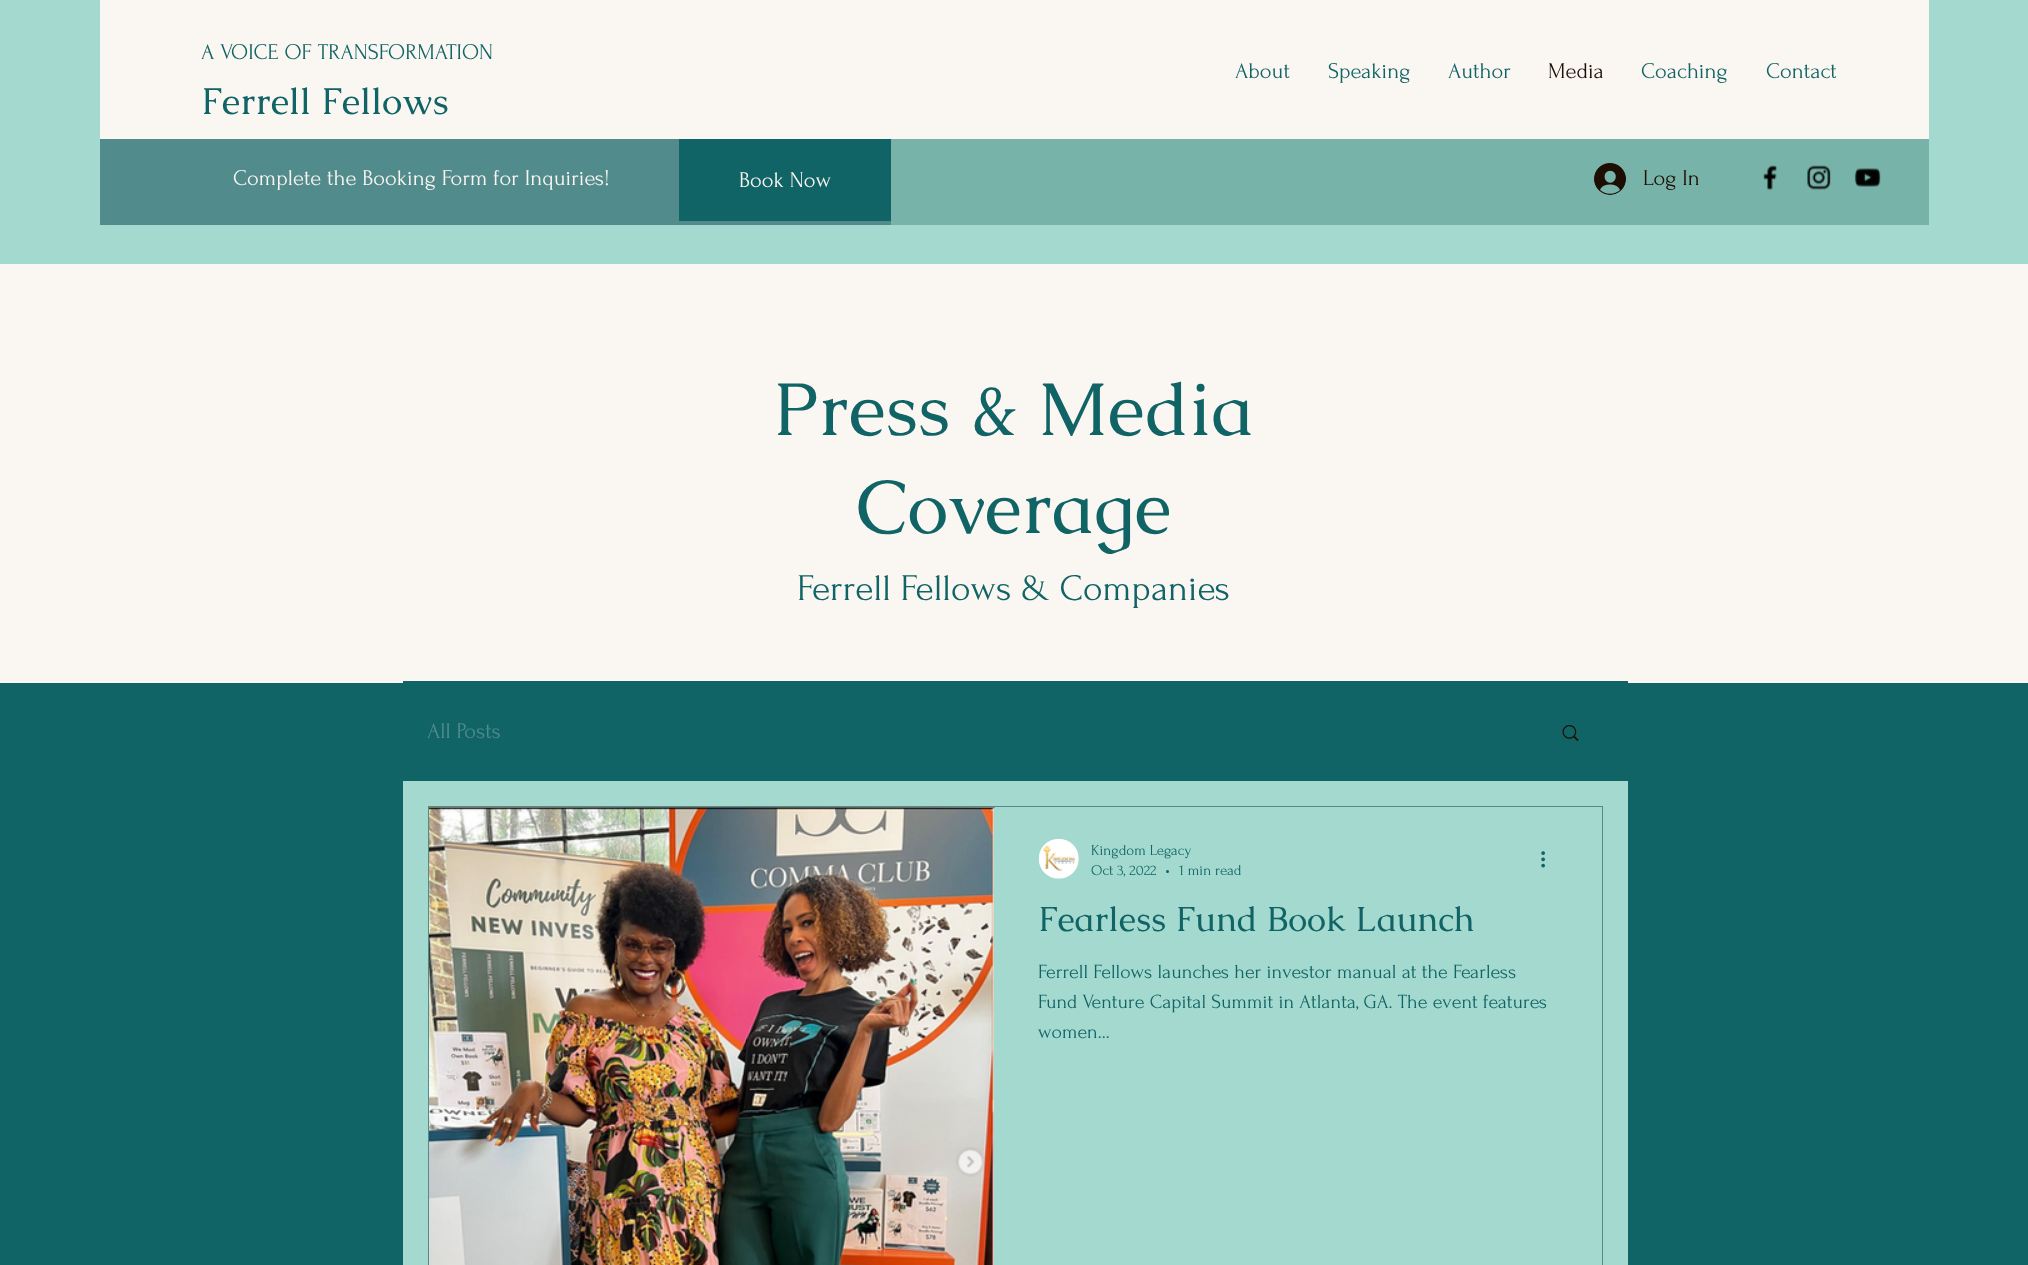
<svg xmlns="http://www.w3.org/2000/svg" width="2028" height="1265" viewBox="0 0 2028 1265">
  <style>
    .t1 { font: 22.5px Forum; fill: #116466; }
    .t2 { font: 37.5px Caudex; fill: #116466; }
    .t3 { font: 22.5px Forum; fill: #1d0e03; }
    .t4 { font: 22.5px Forum; fill: #faf6f2; }
    .t5 { font: 75px Caudex; fill: #116466; }
    .t6 { font: 37.5px Forum; fill: #116466; }
    .t7 { font: 22.5px Forum; fill: #528b8c; }
    .t8 { font: 15px Forum; fill: #116466; }
    .t9 { font: 35px Caudex; fill: #116466; }
    .t10 { font: 20px Forum; fill: #116466; }
  </style>
  <rect width="100%" height="100%" fill="#a3d9cf"/>
  <rect x="100" y="0" width="1829" height="139" fill="#faf6f2"/>
  <text x="201" y="59" class="t1">A VOICE OF TRANSFORMATION</text>
  <text x="201" y="114" class="t2">Ferrell Fellows</text>
  <text x="1235" y="78" class="t1">About</text>
  <text x="1328" y="78" class="t1">Speaking</text>
  <text x="1448" y="78" class="t1">Author</text>
  <text x="1548" y="78" class="t3">Media</text>
  <text x="1641" y="78" class="t1">Coaching</text>
  <text x="1766" y="78" class="t1">Contact</text>
  <rect x="891" y="139" width="1038" height="86" fill="#78b3a9"/>
  <rect x="100" y="139" width="791" height="86" fill="#528b8c"/>
  <text x="233" y="185" class="t4">Complete the Booking Form for Inquiries!</text>
  <rect x="679" y="139" width="212" height="82" fill="#116466"/>
  <text x="739" y="187" class="t4">Book Now</text>
  <image x="1594" y="163" width="32" height="32" href="images/1.png"/>
  <text x="1643" y="185" class="t3">Log In</text>
  <image x="1763" y="165" width="14" height="26" href="images/2.png"/>
  <image x="1807" y="165" width="24" height="25" href="images/3.png"/>
  <image x="1854" y="168" width="27" height="19" href="images/4.png"/>
  <rect x="0" y="264" width="2028" height="419" fill="#faf6f2"/>
  <text x="773" y="435" class="t5">Press &amp; Media</text>
  <text x="856" y="533" class="t5">Coverage</text>
  <text x="797" y="600" class="t6">Ferrell Fellows &amp; Companies</text>
  <rect x="0" y="683" width="2028" height="582" fill="#116466"/>
  <rect x="403" y="781" width="1225" height="484" fill="#a3d9cf"/>
  <rect x="403" y="681" width="1225" height="2" fill="#116466"/>
  <text x="427" y="738" class="t7">All Posts</text>
  <image x="1562" y="725" width="17" height="16" href="images/5.png"/>
  <rect x="428.5" y="806.5" width="1174" height="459" fill="none" stroke="#528b8c"/>
  <image x="429" y="807" width="566" height="1" href="images/6.png"/>
  <image x="429" y="808" width="565" height="457" href="images/7.png"/>
  <image x="1038" y="838" width="41" height="41" href="images/8.png"/>
  <text x="1091" y="855" class="t8">Kingdom Legacy</text>
  <text x="1091" y="875" class="t8">Oct 3, 2022</text>
  <circle cx="1167.5" cy="871.5" r="1.5" fill="#116466"/>
  <text x="1179" y="875" class="t8">1 min read</text>
  <image x="1541" y="851" width="4" height="17" href="images/9.png"/>
  <text x="1038" y="931" class="t9">Fearless Fund Book Launch</text>
  <text x="1038" y="978" class="t10">Ferrell Fellows launches her investor manual at the Fearless</text>
  <text x="1038" y="1008" class="t10">Fund Venture Capital Summit in Atlanta, GA. The event features</text>
  <text x="1038" y="1038" class="t10">women...</text>
</svg>
